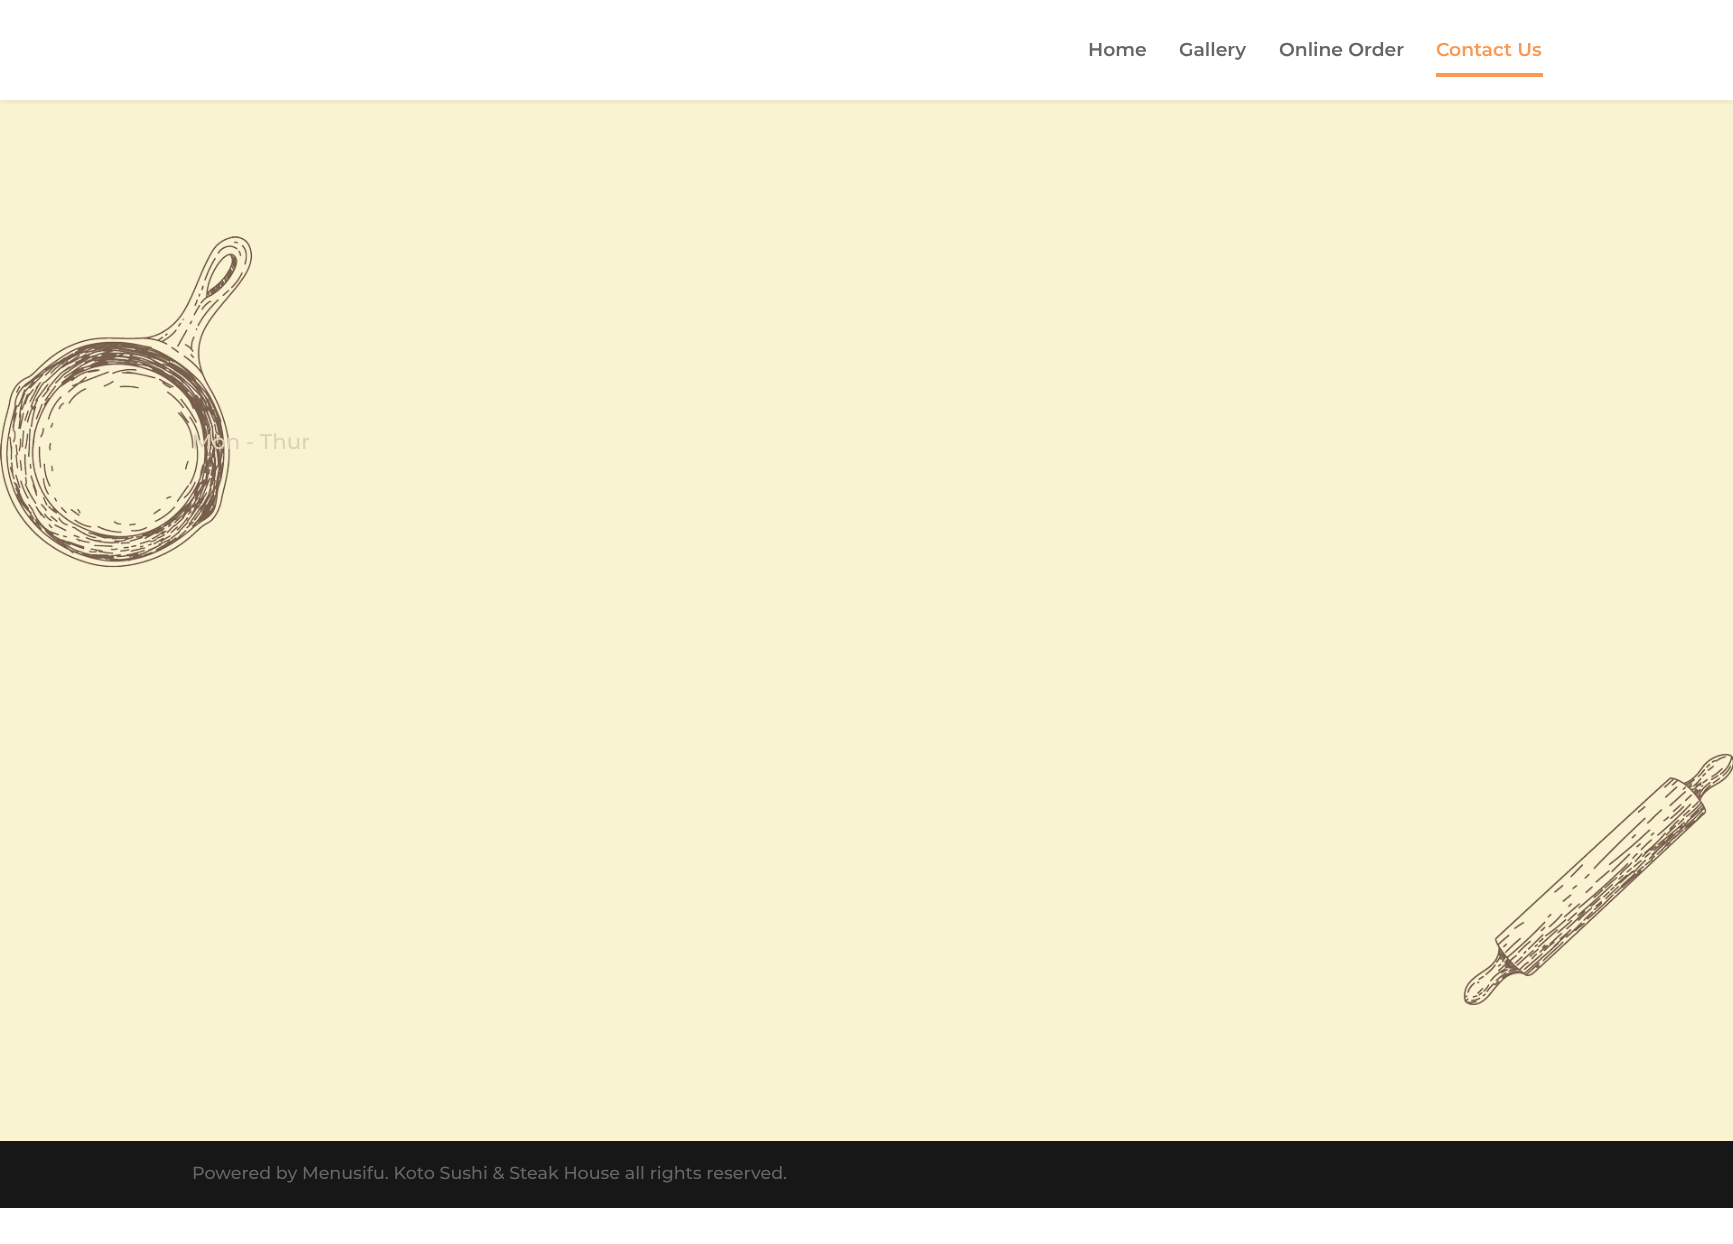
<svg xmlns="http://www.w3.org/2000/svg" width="1733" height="1244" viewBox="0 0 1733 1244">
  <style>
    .t1 { font: 100 18.75px 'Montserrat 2'; fill: #666; }
    .t2 { font: 100 18.75px 'Montserrat 2'; fill: #f89a54; }
    .t3 { font: 100 21.25px Montserrat; fill: #ddd2b5; }
    .t4 { font: 100 21.25px Montserrat; fill: #f3ebcb; }
    .t5 { font: 100 17.5px Montserrat; fill: #666; }
  </style>
  <defs>
    <clipPath id="clip1"><rect x="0" y="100" width="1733" height="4"/></clipPath>
  </defs>
  <rect width="100%" height="100%" fill="#fff"/>
  <rect x="0" y="100" width="1733" height="1041" fill="#faf3d2"/>
  <g clip-path="url(#clip1)">
    <rect x="0" y="0" width="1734" height="100" fill="#0000001a" filter="blur(4.5px)"/>
  </g>
  <text x="1088" y="56" class="t1">Home</text>
  <text x="1179" y="56" class="t1">Gallery</text>
  <text x="1279" y="56" class="t1">Online Order</text>
  <text x="1436" y="56" class="t2">Contact Us</text>
  <rect x="1436" y="73" width="107" height="4" fill="#f89a54"/>
  <image x="0" y="236" width="1733" height="769" href="images/1.png"/>
  <text x="192" y="449" class="t3">Mon - Thur</text>
  <text x="208" y="478" class="t4">:</text>
  <rect x="0" y="1141" width="1733" height="67" fill="#171717"/>
  <text x="192" y="1179" class="t5">Powered by Menusifu. Koto Sushi &amp; Steak House all rights reserved.</text>
</svg>
